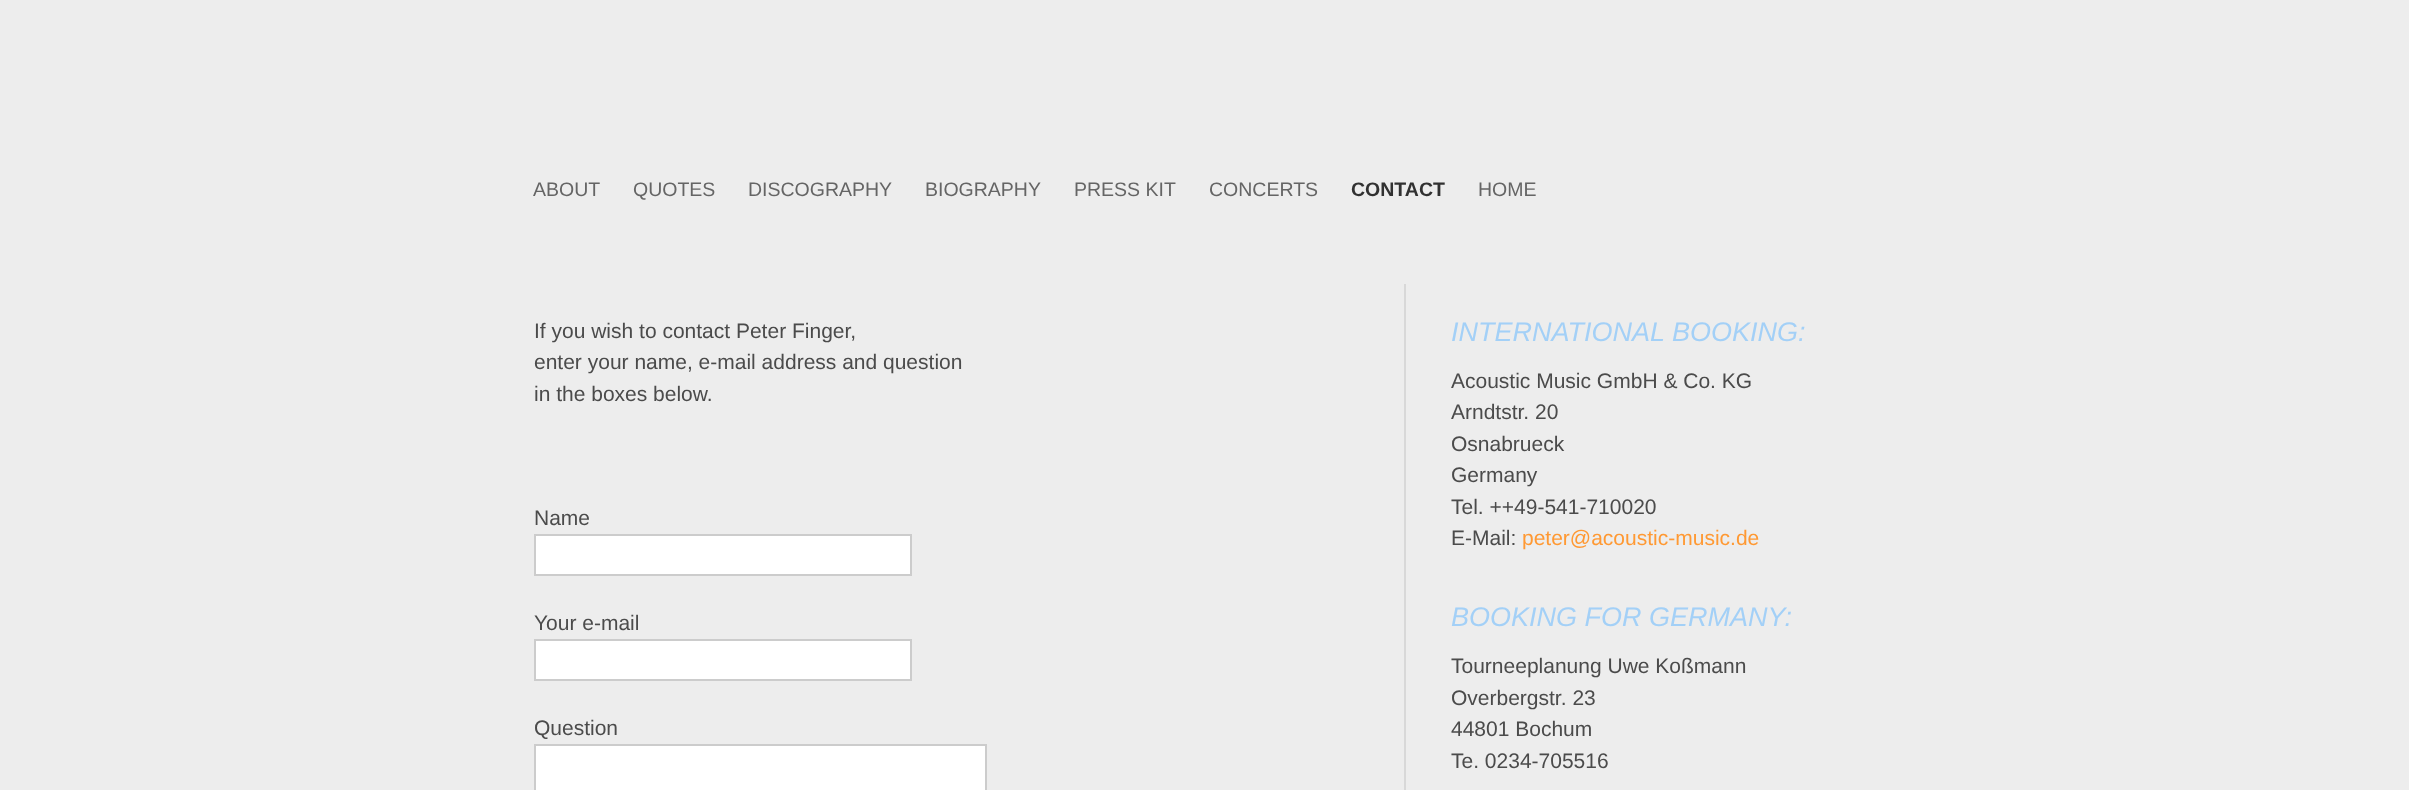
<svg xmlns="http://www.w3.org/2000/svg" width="2409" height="790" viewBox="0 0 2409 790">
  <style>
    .t1 { font: 19.5px Liberation Sans; fill: #656565; }
    .t2 { font: bold 19.5px Liberation Sans; fill: #313131; }
    .t3 { font: 21px Liberation Sans; fill: #4b4b4b; }
    .t4 { font: italic 27px Liberation Sans; fill: #a3d0f7; }
    .t5 { font: 21px Liberation Sans; fill: #f93; }
  </style>
  <rect width="100%" height="100%" fill="#ededed"/>
  <text x="533" y="196" class="t1">ABOUT</text>
  <text x="633" y="196" class="t1">QUOTES</text>
  <text x="748" y="196" class="t1">DISCOGRAPHY</text>
  <text x="925" y="196" class="t1">BIOGRAPHY</text>
  <text x="1074" y="196" class="t1">PRESS KIT</text>
  <text x="1209" y="196" class="t1">CONCERTS</text>
  <text x="1351" y="196" class="t2">CONTACT</text>
  <text x="1478" y="196" class="t1">HOME</text>
  <rect x="1404" y="284" width="2" height="506" fill="#d8d8d8"/>
  <text x="534" y="338" class="t3">If you wish to contact Peter Finger,</text>
  <text x="534" y="369" class="t3">enter your name, e-mail address and question</text>
  <text x="534" y="401" class="t3">in the boxes below.</text>
  <text x="534" y="525" class="t3">Name</text>
  <rect x="535" y="535" width="376" height="40" fill="#fff" stroke="#ccc" stroke-width="2"/>
  <text x="534" y="630" class="t3">Your e-mail</text>
  <rect x="535" y="640" width="376" height="40" fill="#fff" stroke="#ccc" stroke-width="2"/>
  <text x="534" y="735" class="t3">Question</text>
  <rect x="535" y="745" width="451" height="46" fill="#fff" stroke="#ccc" stroke-width="2"/>
  <text x="1451" y="341" class="t4">INTERNATIONAL BOOKING:</text>
  <text x="1451" y="388" class="t3">Acoustic Music GmbH &amp; Co. KG</text>
  <text x="1451" y="419" class="t3">Arndtstr. 20</text>
  <text x="1451" y="451" class="t3">Osnabrueck</text>
  <text x="1451" y="482" class="t3">Germany</text>
  <text x="1451" y="514" class="t3">Tel. ++49-541-710020</text>
  <text x="1451" y="545" class="t3">E-Mail:</text>
  <text x="1522" y="545" class="t5">peter@acoustic-music.de</text>
  <text x="1451" y="626" class="t4">BOOKING FOR GERMANY:</text>
  <text x="1451" y="673" class="t3">Tourneeplanung Uwe Koßmann</text>
  <text x="1451" y="705" class="t3">Overbergstr. 23</text>
  <text x="1451" y="736" class="t3">44801 Bochum</text>
  <text x="1451" y="768" class="t3">Te. 0234-705516</text>
</svg>
